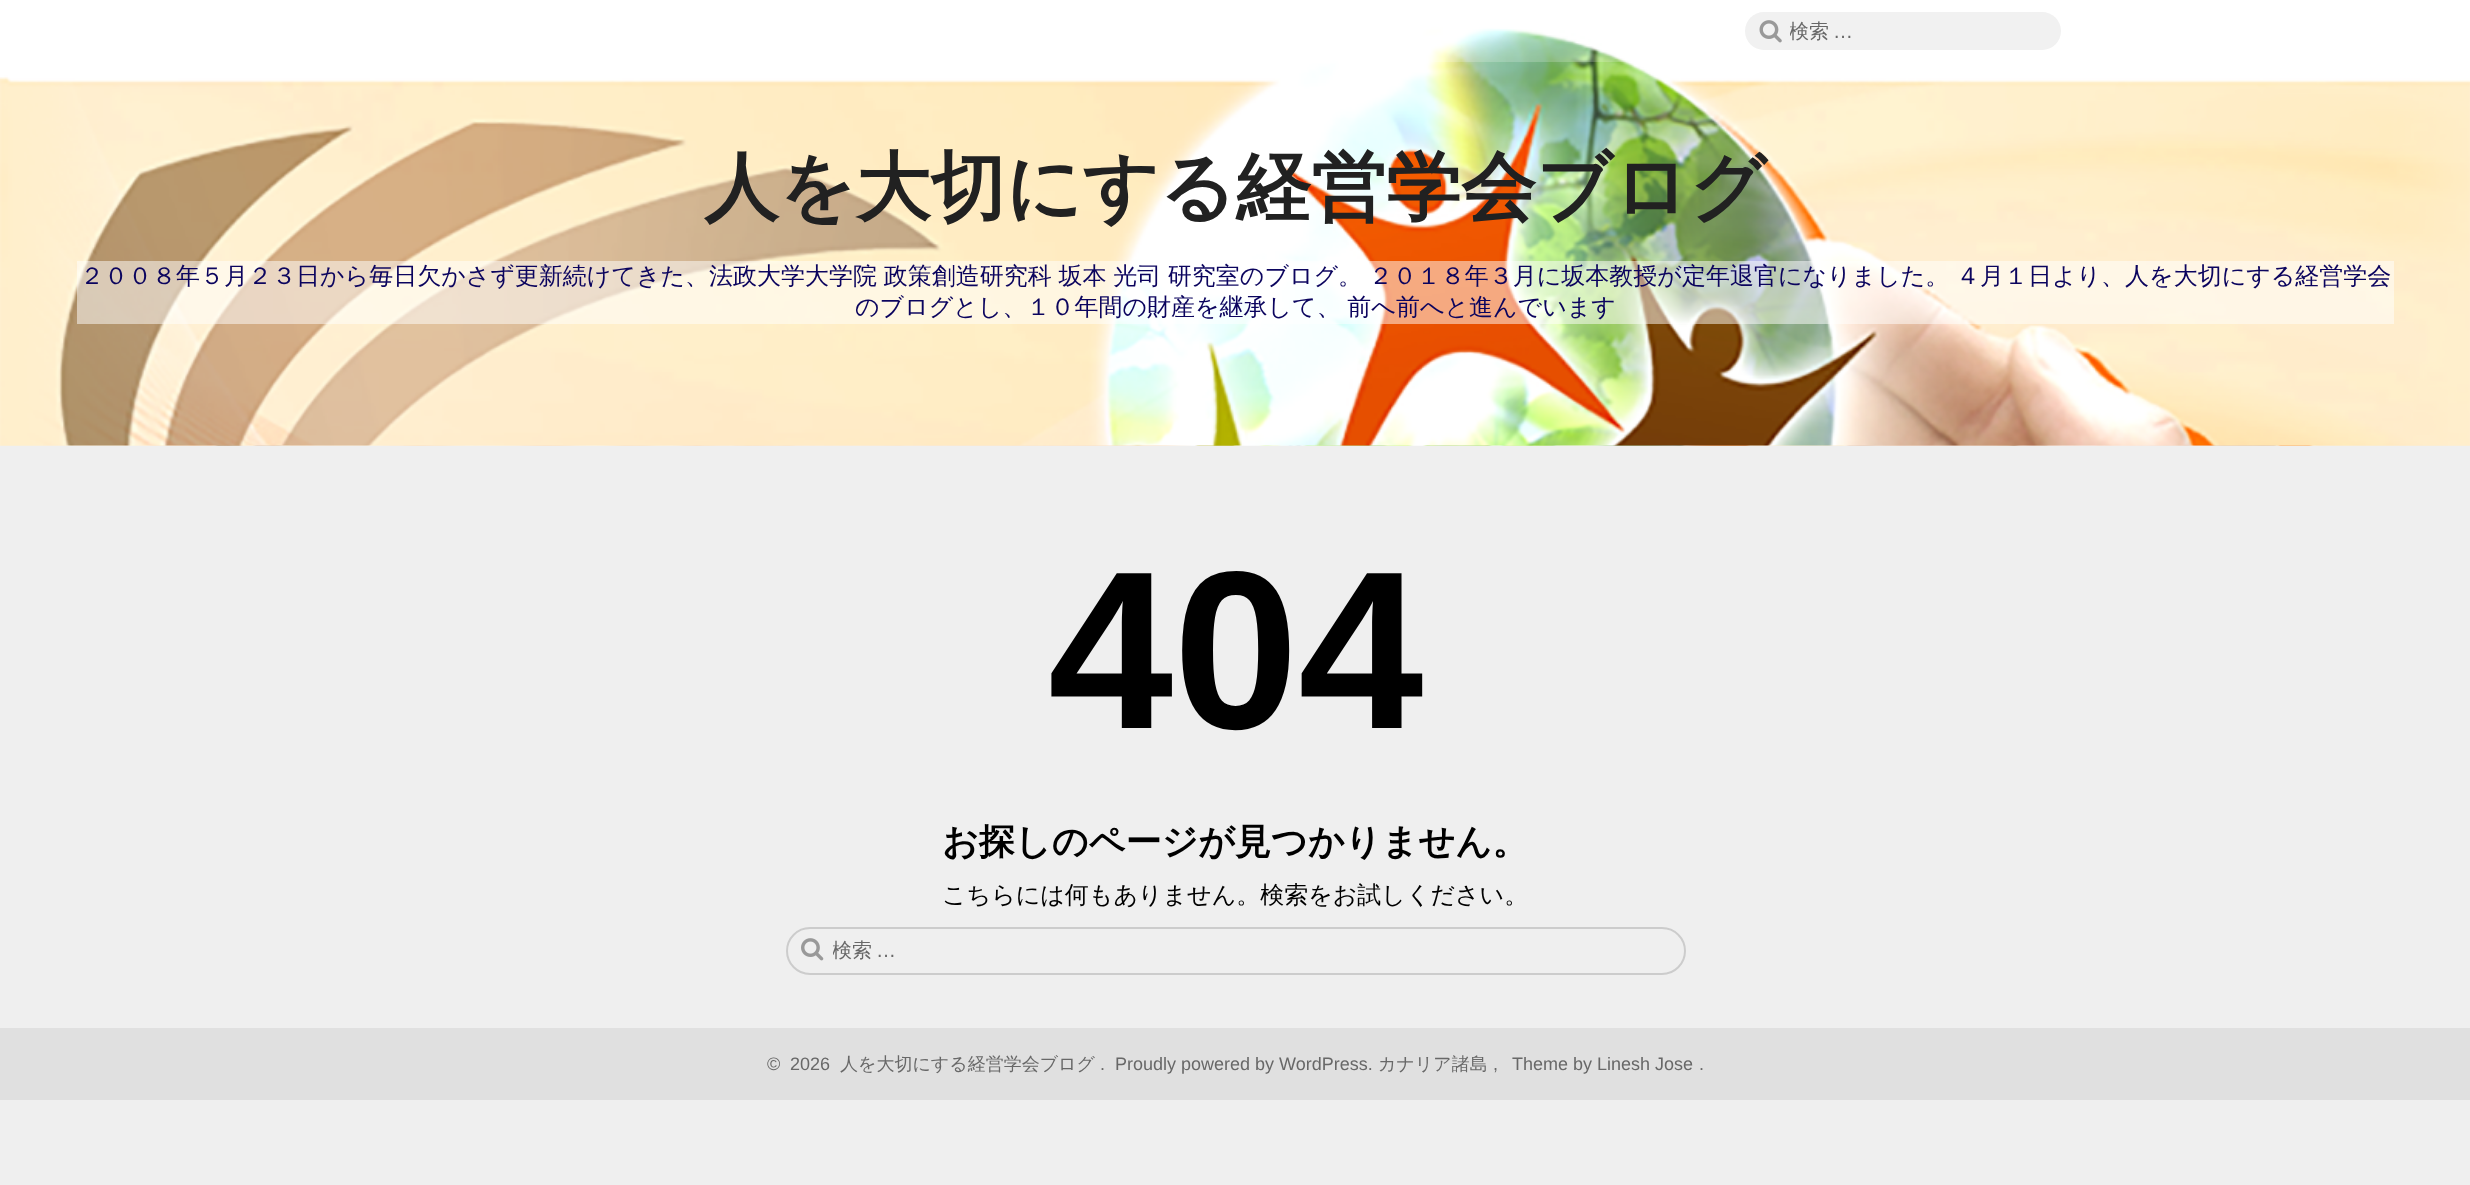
<svg xmlns="http://www.w3.org/2000/svg" width="2470" height="1185" viewBox="0 0 2470 1185">
  <style>
    .t1 { font: 500 20px WenQuanYi Zen Hei; fill: #686868; }
    .t2 { font: 20px Liberation Sans; fill: #686868; }
    .t3 { font: bold 75px WenQuanYi Zen Hei; fill: #212121; }
    .t4 { font: 500 24px WenQuanYi Zen Hei; fill: #0b045e; }
    .t5 { font: bold 225px Liberation Sans; fill: #000; }
    .t6 { font: bold 36px WenQuanYi Zen Hei; fill: #000; }
    .t7 { font: 500 24px WenQuanYi Zen Hei; fill: #000; }
    .t8 { font: 18px Liberation Sans; fill: #686868; }
    .t9 { font: 500 18px WenQuanYi Zen Hei; fill: #686868; }
  </style>
  <defs>
    <clipPath id="clip1"><rect x="1790" y="18" width="258" height="27"/></clipPath>
    <clipPath id="clip2"><rect x="833" y="938" width="831" height="27"/></clipPath>
  </defs>
  <rect width="100%" height="100%" fill="#efefef"/>
  <image x="0" y="445" width="2470" height="1" href="images/1.png"/>
  <image x="0" y="0" width="2470" height="446" href="images/2.png"/>
  <rect x="1431" y="30" width="196" height="32" fill="#ffffff33"/>
  <rect x="1745" y="12" width="316" height="38" rx="19" fill="#f1f1f1"/>
  <image x="1759" y="20" width="23" height="23" href="images/3.png"/>
  <g clip-path="url(#clip1)">
    <text x="1789" y="38" class="t1">検索</text>
  </g>
  <text x="1833" y="38" class="t2">…</text>
  <text x="704" y="213" class="t3">人を大切にする経営学会ブログ</text>
  <rect x="77" y="261" width="2317" height="63" fill="#ffffff80"/>
  <text x="80" y="284" word-spacing="-0.5" class="t4">２００８年５月２３日から毎日欠かさず更新続けてきた、法政大学大学院 政策創造研究科 坂本 光司 研究室のブログ。 ２０１８年３月に坂本教授が定年退官になりました。 ４月１日より、人を大切にする経営学会</text>
  <text x="855" y="315" word-spacing="-0.5" class="t4">のブログとし、１０年間の財産を継承して、 前へ前へと進んでいます</text>
  <text x="1048" y="728" class="t5">404</text>
  <text x="942" y="854" class="t6">お探しのページが見つかりません。</text>
  <text x="942" y="903" class="t7">こちらには何もありません。検索をお試しください。</text>
  <rect x="787" y="928" width="898" height="46" rx="23" fill="none" stroke="#ccc" stroke-width="2"/>
  <image x="801" y="938" width="23" height="23" href="images/4.png"/>
  <g clip-path="url(#clip2)">
    <text x="832" y="957" class="t1">検索</text>
  </g>
  <text x="876" y="957" class="t2">…</text>
  <rect x="0" y="1028" width="2470" height="72" fill="#e0e0e0"/>
  <text x="767" y="1070" class="t8">©</text>
  <text x="790" y="1070" class="t8">2026</text>
  <text x="840" y="1070" class="t9">人を大切にする経営学会ブログ</text>
  <text x="1100" y="1070" class="t8">.</text>
  <text x="1115" y="1070" class="t8">Proudly powered by WordPress.</text>
  <text x="1378" y="1070" class="t9">カナリア諸島</text>
  <text x="1493" y="1070" class="t8">,</text>
  <text x="1512" y="1070" class="t8">Theme by Linesh Jose</text>
  <text x="1699" y="1070" class="t8">.</text>
</svg>
